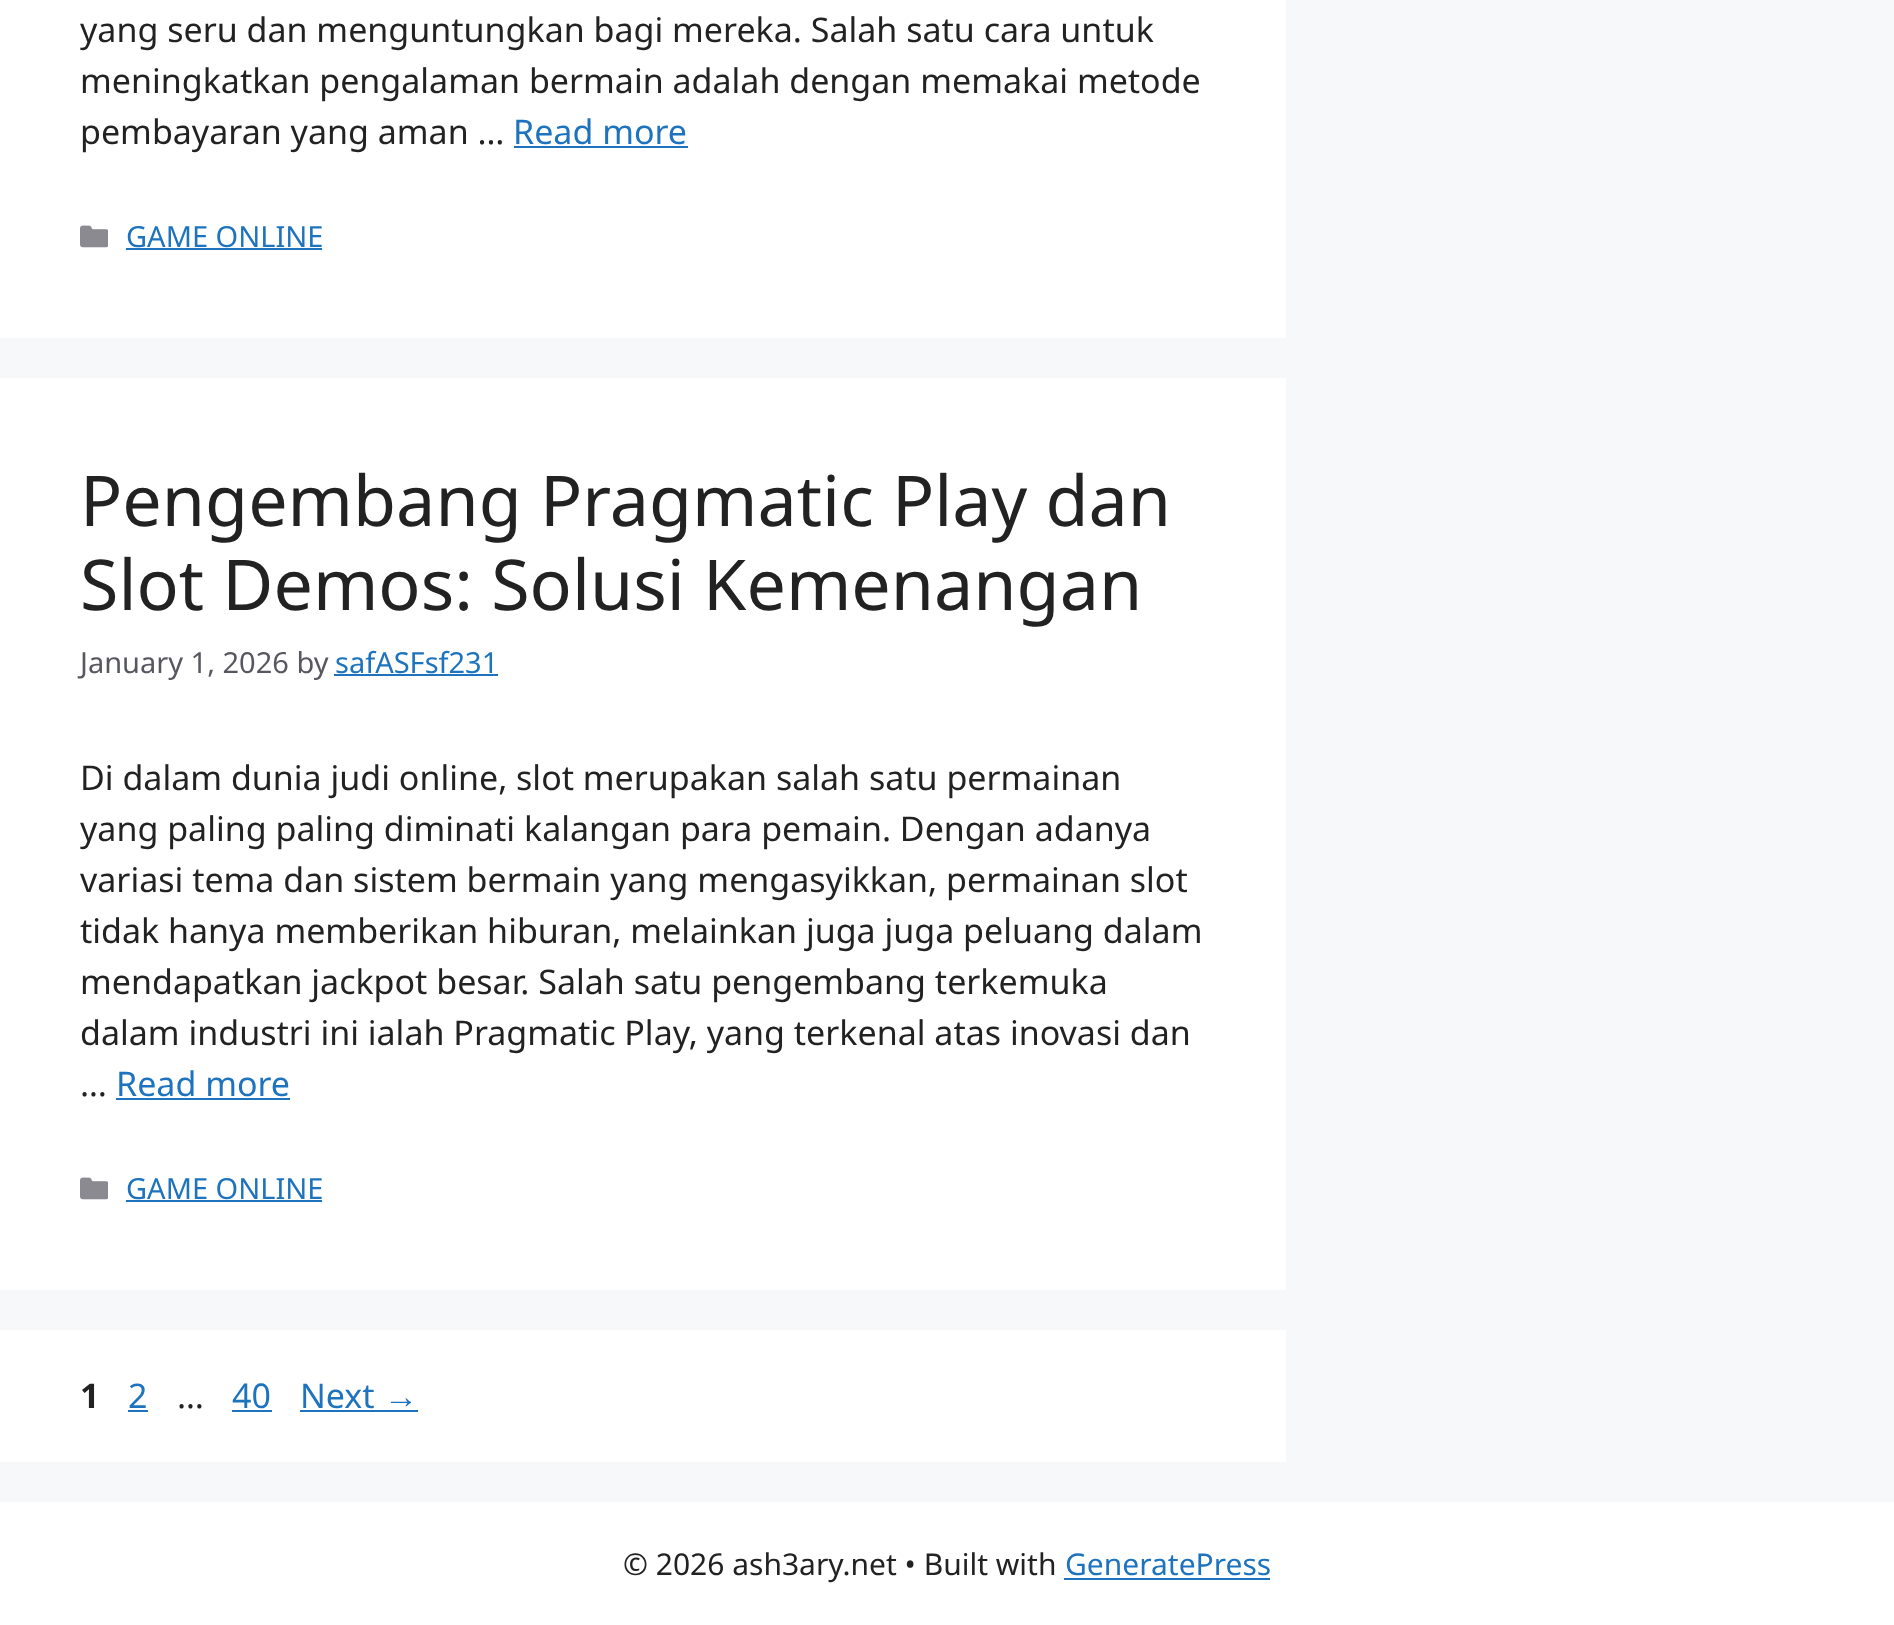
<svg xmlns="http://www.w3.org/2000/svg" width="1894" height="1625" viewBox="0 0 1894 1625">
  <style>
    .t1 { font: 34px Noto Sans; fill: #222; }
    .t2 { font: 34px Noto Sans; fill: #1e73be; }
    .t3 { font: 29px Noto Sans; fill: #1e73be; }
    .t4 { font: 70px Noto Sans; fill: #222; }
    .t5 { font: 29px Noto Sans; fill: #575760; }
    .t6 { font: bold 34px Noto Sans; fill: #222; }
    .t7 { font: 34px Liberation Sans; fill: #1e73be; }
    .t8 { font: 30px Noto Sans; fill: #222; }
    .t9 { font: 30px Noto Sans; fill: #1e73be; }
  </style>
  <rect width="100%" height="100%" fill="#f7f8f9"/>
  <rect x="0" y="0" width="1286" height="338" fill="#fff"/>
  <text x="80" y="42" class="t1">yang seru dan menguntungkan bagi mereka. Salah satu cara untuk</text>
  <text x="80" y="93" class="t1">meningkatkan pengalaman bermain adalah dengan memakai metode</text>
  <text x="80" y="144" class="t1">pembayaran yang aman …</text>
  <text x="513" y="144" class="t2">Read more</text>
  <rect x="514" y="146" width="174" height="2" fill="#1e73be"/>
  <image x="80" y="225" width="28" height="23" href="images/1.png"/>
  <text x="126" y="247" class="t3">GAME ONLINE</text>
  <rect x="126" y="248" width="196" height="2" fill="#1e73be"/>
  <rect x="0" y="378" width="1286" height="912" fill="#fff"/>
  <text x="80" y="526" class="t4">Pengembang Pragmatic Play dan</text>
  <text x="80" y="610" class="t4">Slot Demos: Solusi Kemenangan</text>
  <text x="80" y="673" class="t5">January 1, 2026 by</text>
  <text x="335" y="673" class="t3">safASFsf231</text>
  <rect x="334" y="674" width="164" height="2" fill="#1e73be"/>
  <text x="80" y="790" class="t1">Di dalam dunia judi online, slot merupakan salah satu permainan</text>
  <text x="80" y="841" class="t1">yang paling paling diminati kalangan para pemain. Dengan adanya</text>
  <text x="80" y="892" class="t1">variasi tema dan sistem bermain yang mengasyikkan, permainan slot</text>
  <text x="80" y="943" class="t1">tidak hanya memberikan hiburan, melainkan juga juga peluang dalam</text>
  <text x="80" y="994" class="t1">mendapatkan jackpot besar. Salah satu pengembang terkemuka</text>
  <text x="80" y="1045" class="t1">dalam industri ini ialah Pragmatic Play, yang terkenal atas inovasi dan</text>
  <text x="80" y="1096" class="t1">…</text>
  <text x="116" y="1096" class="t2">Read more</text>
  <rect x="116" y="1098" width="174" height="2" fill="#1e73be"/>
  <image x="80" y="1177" width="28" height="23" href="images/1.png"/>
  <text x="126" y="1199" class="t3">GAME ONLINE</text>
  <rect x="126" y="1200" width="196" height="2" fill="#1e73be"/>
  <rect x="0" y="1330" width="1286" height="132" fill="#fff"/>
  <text x="80" y="1408" class="t6">1</text>
  <text x="128" y="1408" class="t2">2</text>
  <rect x="128" y="1410" width="20" height="2" fill="#1e73be"/>
  <text x="177" y="1408" class="t1">…</text>
  <text x="232" y="1408" class="t2">40</text>
  <rect x="232" y="1410" width="40" height="2" fill="#1e73be"/>
  <text x="300" y="1408" class="t2">Next</text>
  <text x="384" y="1408" class="t7">→</text>
  <rect x="300" y="1410" width="118" height="2" fill="#1e73be"/>
  <rect x="0" y="1502" width="1894" height="123" fill="#fff"/>
  <text x="623" y="1575" class="t8">© 2026 ash3ary.net • Built with</text>
  <text x="1065" y="1575" class="t9">GeneratePress</text>
  <rect x="1064" y="1578" width="206" height="2" fill="#1e73be"/>
</svg>
